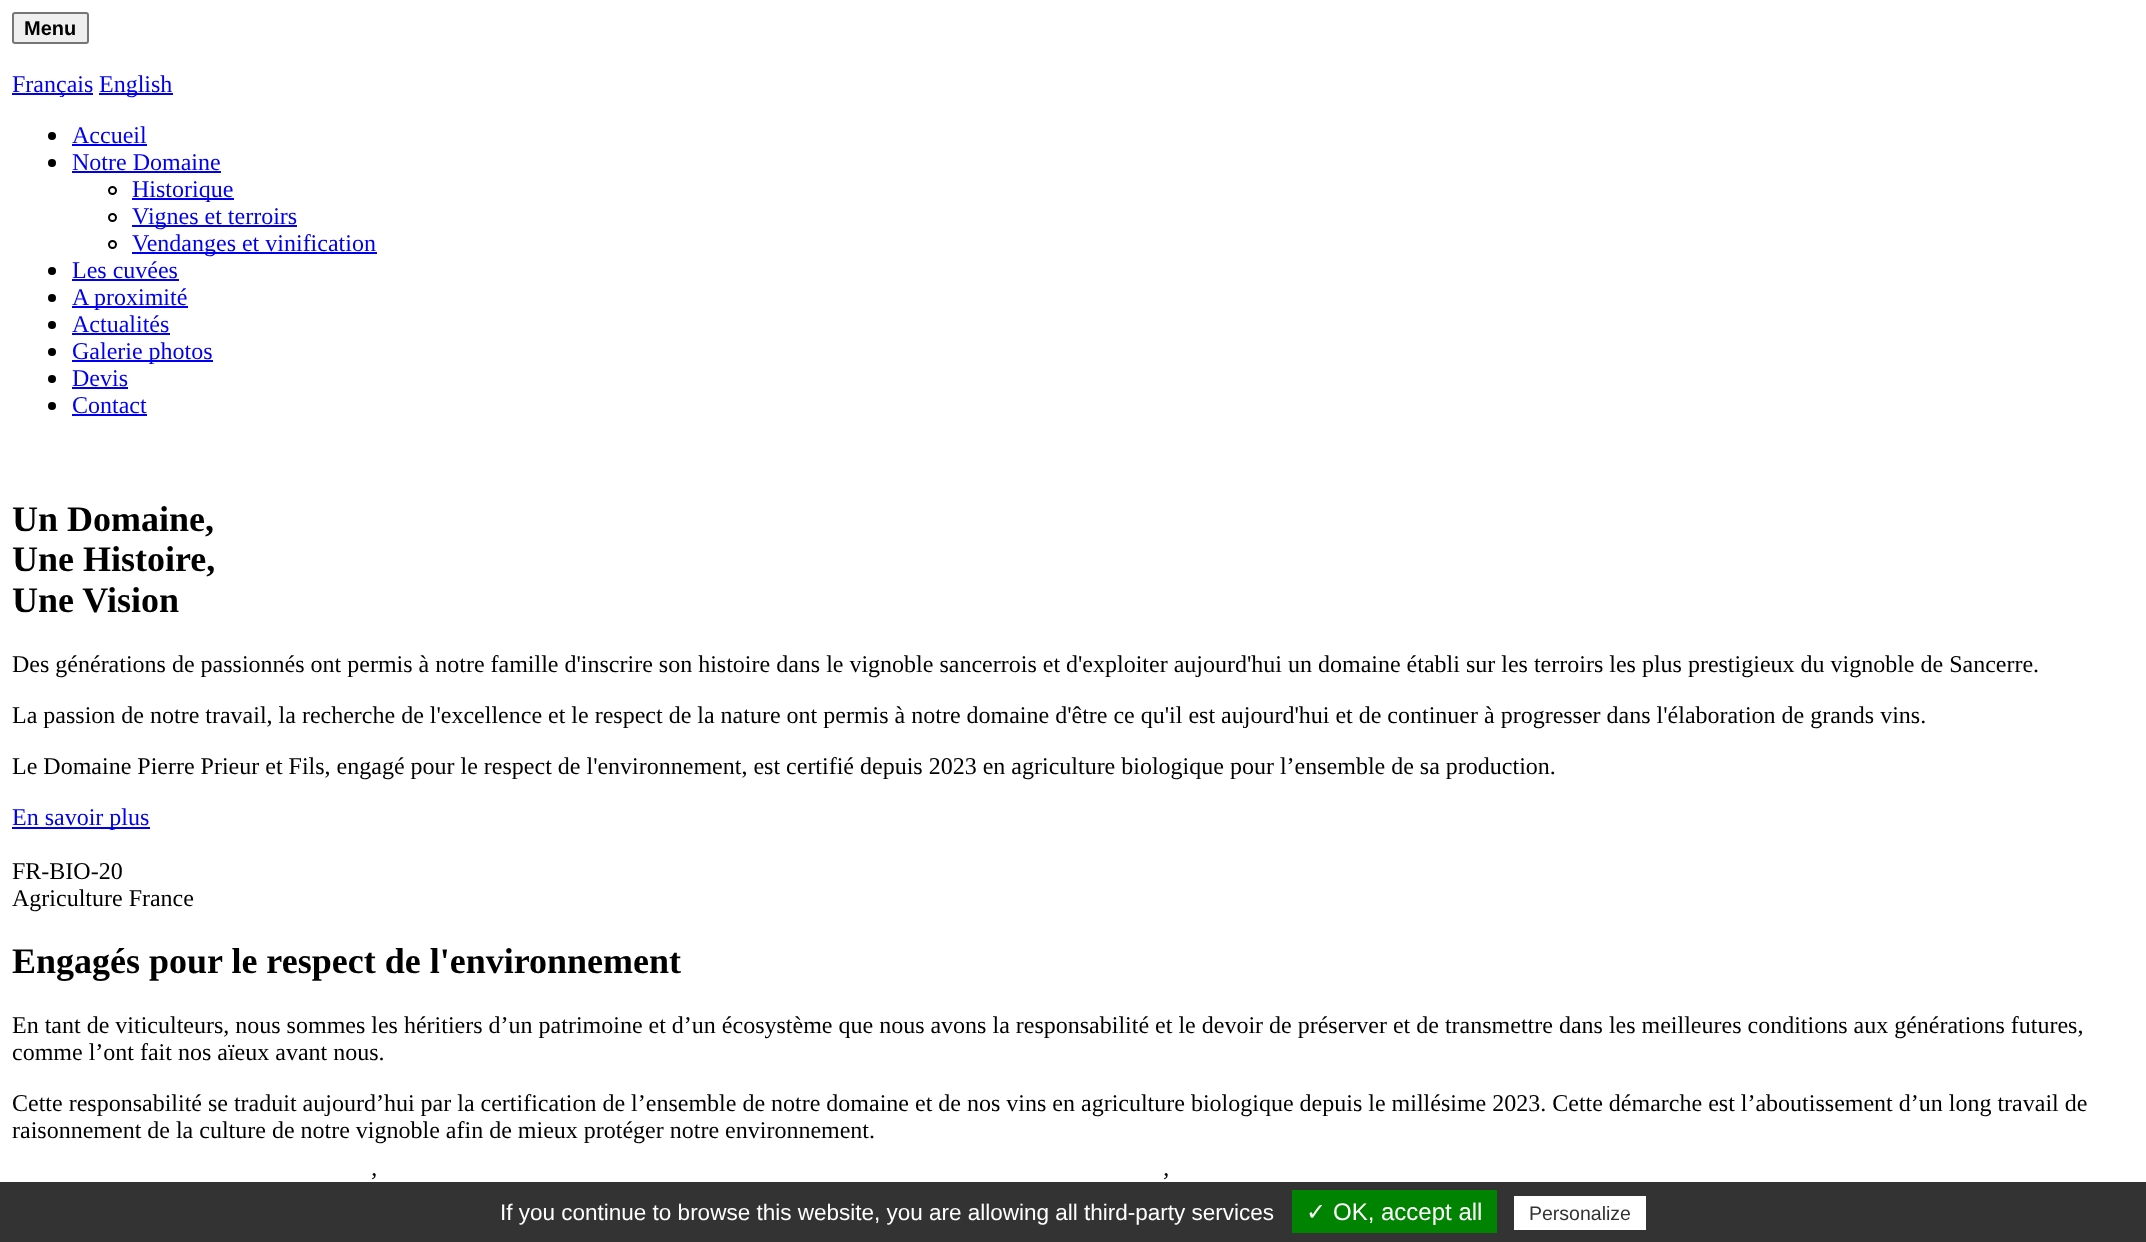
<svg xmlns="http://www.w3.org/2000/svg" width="2146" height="1242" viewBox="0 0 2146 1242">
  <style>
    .t1 { font: bold 20px Liberation Sans; fill: #000; }
    .t2 { font: 24px Liberation Serif; fill: #00e; }
    .t3 { font: bold 36px Liberation Serif; fill: #000; }
    .t4 { font: 24px Liberation Serif; fill: #000; }
    .t5 { font: 22.5px Liberation Sans; fill: #fff; }
    .t6 { font: 24px DejaVu Sans; fill: #fff; }
    .t7 { font: 24px Liberation Sans; fill: #fff; }
    .t8 { font: 19.5px Liberation Sans; fill: #333; }
  </style>
  <rect width="100%" height="100%" fill="#fff"/>
  <rect x="13" y="13" width="75" height="30" rx="2" fill="#efefef" stroke="#767676" stroke-width="2"/>
  <text x="24" y="35" class="t1">Menu</text>
  <rect x="12" y="93" width="81" height="2" fill="#00e"/>
  <text x="12" y="92" class="t2">Français</text>
  <rect x="99" y="93" width="74" height="2" fill="#00e"/>
  <text x="99" y="92" class="t2">English</text>
  <circle cx="52" cy="136" r="4" fill="#000"/>
  <text x="72" y="143" class="t2">Accueil</text>
  <rect x="72" y="144" width="75" height="2" fill="#00e"/>
  <circle cx="52" cy="163" r="4" fill="#000"/>
  <text x="72" y="170" class="t2">Notre Domaine</text>
  <rect x="72" y="171" width="149" height="2" fill="#00e"/>
  <circle cx="112.5" cy="190.5" r="3.5" fill="none" stroke="#000" stroke-width="2"/>
  <rect x="132" y="198" width="102" height="2" fill="#00e"/>
  <text x="132" y="197" class="t2">Historique</text>
  <circle cx="112.5" cy="217.5" r="3.5" fill="none" stroke="#000" stroke-width="2"/>
  <rect x="132" y="225" width="165" height="2" fill="#00e"/>
  <text x="132" y="224" class="t2">Vignes et terroirs</text>
  <circle cx="112.5" cy="244.5" r="3.5" fill="none" stroke="#000" stroke-width="2"/>
  <rect x="132" y="252" width="245" height="2" fill="#00e"/>
  <text x="132" y="251" class="t2">Vendanges et vinification</text>
  <circle cx="52" cy="271" r="4" fill="#000"/>
  <text x="72" y="278" class="t2">Les cuvées</text>
  <rect x="72" y="279" width="107" height="2" fill="#00e"/>
  <circle cx="52" cy="298" r="4" fill="#000"/>
  <rect x="72" y="306" width="116" height="2" fill="#00e"/>
  <text x="72" y="305" class="t2">A proximité</text>
  <circle cx="52" cy="325" r="4" fill="#000"/>
  <text x="72" y="332" class="t2">Actualités</text>
  <rect x="72" y="333" width="98" height="2" fill="#00e"/>
  <circle cx="52" cy="352" r="4" fill="#000"/>
  <rect x="72" y="360" width="141" height="2" fill="#00e"/>
  <text x="72" y="359" class="t2">Galerie photos</text>
  <circle cx="52" cy="379" r="4" fill="#000"/>
  <text x="72" y="386" class="t2">Devis</text>
  <rect x="72" y="387" width="56" height="2" fill="#00e"/>
  <circle cx="52" cy="406" r="4" fill="#000"/>
  <text x="72" y="413" class="t2">Contact</text>
  <rect x="72" y="414" width="75" height="2" fill="#00e"/>
  <text x="12" y="531" class="t3">Un Domaine,</text>
  <text x="12" y="571" class="t3">Une Histoire,</text>
  <text x="12" y="612" class="t3">Une Vision</text>
  <text x="12" y="672" class="t4">Des générations de passionnés ont permis à notre famille d'inscrire son histoire dans le vignoble sancerrois et d'exploiter aujourd'hui un domaine établi sur les terroirs les plus prestigieux du vignoble de Sancerre.</text>
  <text x="12" y="723" class="t4">La passion de notre travail, la recherche de l'excellence et le respect de la nature ont permis à notre domaine d'être ce qu'il est aujourd'hui et de continuer à progresser dans l'élaboration de grands vins.</text>
  <text x="12" y="774" class="t4">Le Domaine Pierre Prieur et Fils, engagé pour le respect de l'environnement, est certifié depuis 2023 en agriculture biologique pour l’ensemble de sa production.</text>
  <rect x="12" y="827" width="138" height="2" fill="#00e"/>
  <text x="12" y="825" class="t2">En savoir plus</text>
  <text x="12" y="879" class="t4">FR-BIO-20</text>
  <text x="12" y="906" class="t4">Agriculture France</text>
  <text x="12" y="973" class="t3">Engagés pour le respect de l'environnement</text>
  <text x="12" y="1033" class="t4">En tant de viticulteurs, nous sommes les héritiers d’un patrimoine et d’un écosystème que nous avons la responsabilité et le devoir de préserver et de transmettre dans les meilleures conditions aux générations futures,</text>
  <text x="12" y="1060" class="t4">comme l’ont fait nos aïeux avant nous.</text>
  <text x="12" y="1111" class="t4">Cette responsabilité se traduit aujourd’hui par la certification de l’ensemble de notre domaine et de nos vins en agriculture biologique depuis le millésime 2023. Cette démarche est l’aboutissement d’un long travail de</text>
  <text x="12" y="1138" class="t4">raisonnement de la culture de notre vignoble afin de mieux protéger notre environnement.</text>
  <text x="370" y="1189" class="t4">’</text>
  <text x="1162" y="1189" class="t4">’</text>
  <rect x="0" y="1182" width="2146" height="60" fill="#333"/>
  <text x="500" y="1220" class="t5">If you continue to browse this website, you are allowing all third-party services</text>
  <rect x="1292" y="1190" width="205" height="43" fill="#008300"/>
  <text x="1306" y="1220" class="t6">✓</text>
  <text x="1333" y="1220" class="t7">OK, accept all</text>
  <rect x="1514" y="1196" width="132" height="34" fill="#fff"/>
  <text x="1529" y="1220" class="t8">Personalize</text>
</svg>
